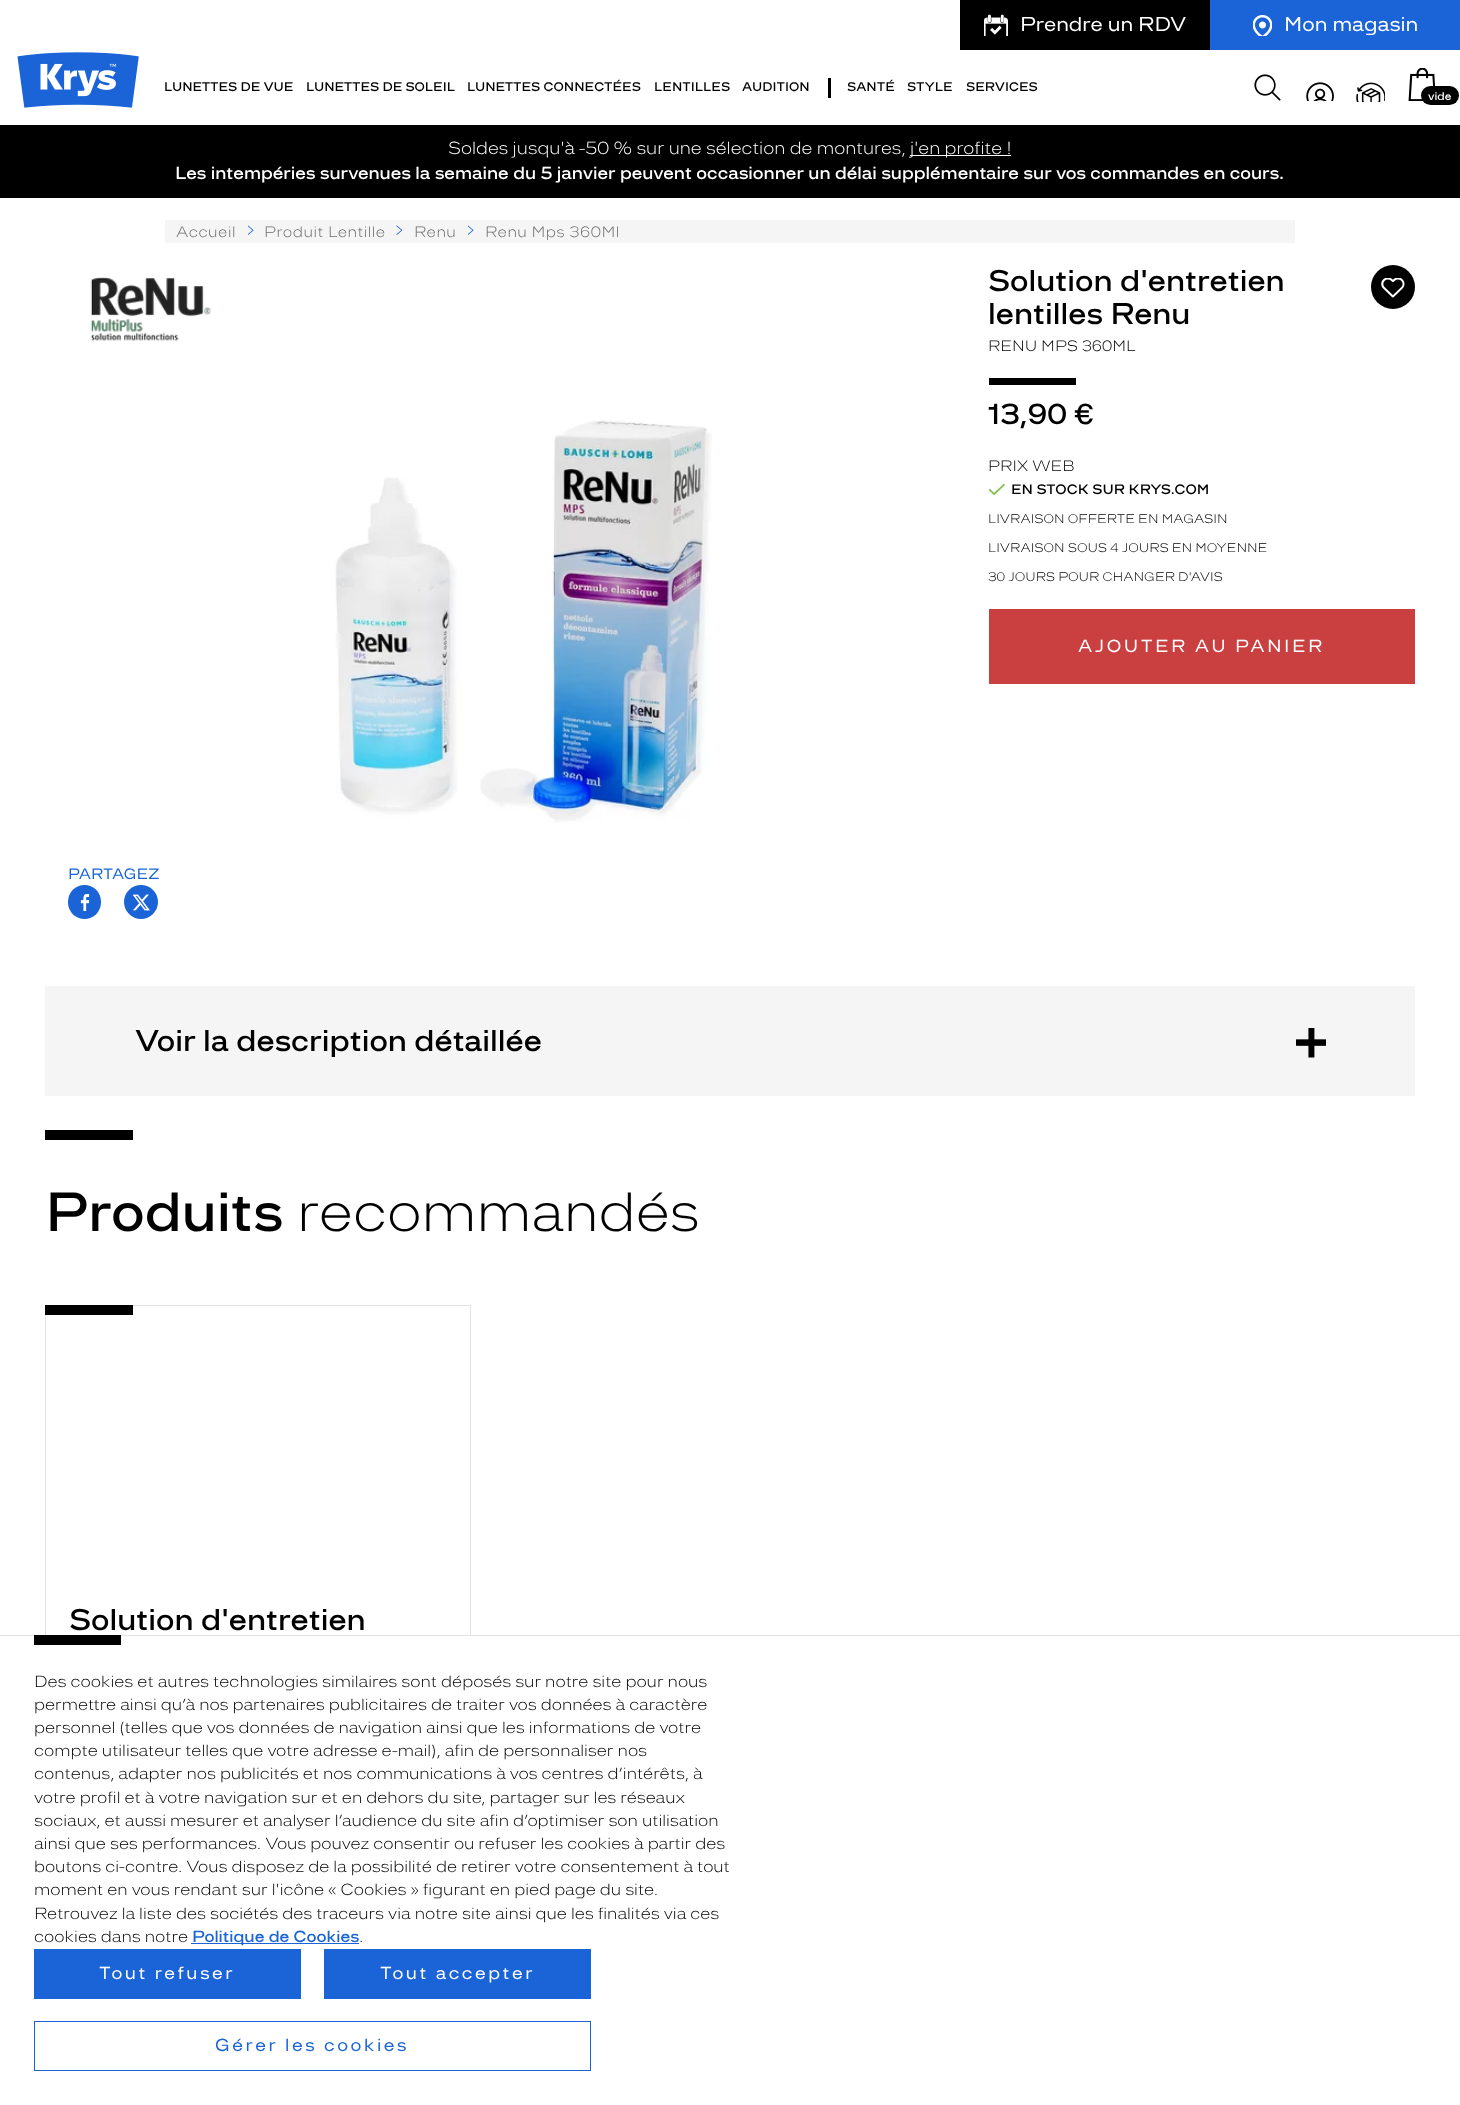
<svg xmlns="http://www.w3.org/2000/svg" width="1460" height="2105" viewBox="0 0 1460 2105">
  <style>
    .t1 { font: 20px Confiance; fill: #fff; }
    .t2 { font: 500 12.5px Confiance; fill: #000; }
    .t3 { font: 500 11px Confiance; fill: #fff; }
    .t4 { font: 300 17.5px Confiance; fill: #fff; }
    .t5 { font: 500 17.5px Confiance; fill: #fff; }
    .t6 { font: 300 15px Confiance; letter-spacing: 0.5px; fill: #6e6d6d; }
    .t7 { font: 500 30px Confiance; fill: #000; }
    .t8 { font: 300 15px Confiance; fill: #000; }
    .t9 { font: 500 29px Confiance; fill: #000; }
    .t10 { font: 500 13.75px Confiance; fill: #000; }
    .t11 { font: 300 12.5px Confiance; fill: #000; }
    .t12 { font: 17.5px Confiance; letter-spacing: 2.5px; fill: #fff; }
    .t13 { font: 15px Confiance; fill: #1b64d7; }
    .t14 { font: 500 55px Confiance; fill: #000; }
    .t15 { font: 300 55px Confiance; fill: #000; }
    .t16 { font: 300 16.25px Confiance; fill: #000; }
    .t17 { font: 500 16.25px Confiance; fill: #1b64d7; }
    .t18 { font: 17.5px Confiance; letter-spacing: 2.5px; fill: #1b64d7; }
  </style>
  <rect width="100%" height="100%" fill="#fff"/>
  <image x="17" y="52" width="122" height="56" href="images/1.png"/>
  <rect x="960" y="0" width="250" height="50" fill="#000"/>
  <image x="984" y="14" width="24" height="22" href="images/2.png"/>
  <text x="1020" y="31" class="t1">Prendre un RDV</text>
  <rect x="1210" y="0" width="250" height="50" fill="#1b64d7"/>
  <image x="1253" y="15" width="19" height="21" href="images/3.png"/>
  <text x="1284" y="31" class="t1">Mon magasin</text>
  <text x="164" y="91" class="t2">LUNETTES DE VUE</text>
  <text x="306" y="91" class="t2">LUNETTES DE SOLEIL</text>
  <text x="467" y="91" class="t2">LUNETTES CONNECTÉES</text>
  <text x="654" y="91" class="t2">LENTILLES</text>
  <text x="742" y="91" class="t2">AUDITION</text>
  <rect x="828" y="78" width="3" height="20" fill="#000"/>
  <text x="847" y="91" class="t2">SANTÉ</text>
  <text x="907" y="91" class="t2">STYLE</text>
  <text x="966" y="91" class="t2">SERVICES</text>
  <image x="1254" y="74" width="27" height="27" href="images/4.png"/>
  <image x="1306" y="82" width="28" height="19" href="images/5.png"/>
  <image x="1356" y="82" width="29" height="20" href="images/6.png"/>
  <image x="1408" y="68" width="28" height="33" href="images/7.png"/>
  <rect x="1421" y="86" width="38" height="19" rx="9.5" fill="#000"/>
  <text x="1428" y="100" class="t3">vide</text>
  <rect x="0" y="125" width="1460" height="73" fill="#000"/>
  <text x="448" y="154" class="t4">Soldes jusqu'à -50 % sur une sélection de montures,</text>
  <rect x="910" y="155" width="101" height="1" fill="#fff"/>
  <text x="910" y="154" class="t4">j'en profite !</text>
  <text x="175" y="179" class="t5">Les intempéries survenues la semaine du 5 janvier peuvent occasionner un délai supplémentaire sur vos commandes en cours.</text>
  <rect x="165" y="220" width="1130" height="23" fill="#f5f5f5"/>
  <text x="176" y="237" class="t6">Accueil</text>
  <image x="248" y="225" width="6" height="10" href="images/8.png"/>
  <text x="264" y="237" class="t6">Produit Lentille</text>
  <image x="396" y="225" width="6" height="10" href="images/9.png"/>
  <text x="414" y="237" class="t6">Renu</text>
  <image x="468" y="225" width="6" height="10" href="images/8.png"/>
  <text x="485" y="237" class="t6">Renu Mps 360Ml</text>
  <text x="988" y="291" class="t7">Solution d'entretien</text>
  <text x="988" y="324" class="t7">lentilles Renu</text>
  <text x="988" y="351" class="t8">RENU MPS 360ML</text>
  <rect x="989" y="378" width="87" height="7" fill="#000"/>
  <text x="988" y="424" class="t9">13,90 €</text>
  <text x="988" y="471" class="t8">PRIX WEB</text>
  <image x="989" y="484" width="16" height="11" href="images/10.png"/>
  <text x="1011" y="494" class="t10">EN STOCK SUR KRYS.COM</text>
  <text x="988" y="523" class="t11">LIVRAISON OFFERTE EN MAGASIN</text>
  <text x="988" y="552" class="t11">LIVRAISON SOUS 4 JOURS EN MOYENNE</text>
  <text x="988" y="581" class="t11">30 JOURS POUR CHANGER D'AVIS</text>
  <rect x="989" y="609" width="426" height="75" fill="#ca4040"/>
  <text x="1078" y="652" class="t12">AJOUTER AU PANIER</text>
  <image x="90" y="277" width="121" height="64" href="images/11.png"/>
  <image x="335" y="420" width="377" height="403" href="images/12.png"/>
  <text x="68" y="879" class="t13">PARTAGEZ</text>
  <rect x="68" y="885" width="33" height="34" rx="16.5" fill="#1b64d7"/>
  <image x="80" y="894" width="10" height="17" href="images/13.png"/>
  <circle cx="141" cy="902" r="17" fill="#1b64d7"/>
  <image x="133" y="894" width="17" height="17" href="images/14.png"/>
  <rect x="45" y="986" width="1370" height="110" fill="#f5f5f5"/>
  <text x="135" y="1051" class="t7">Voir la description détaillée</text>
  <image x="1296" y="1028" width="30" height="30" href="images/15.png"/>
  <path d="M1315.5 1039.5H1296V1045.5H1326V1039.5Z" fill="#000"/>
  <circle cx="1393" cy="287" r="22" fill="#000"/>
  <image x="1381" y="278" width="24" height="20" href="images/16.png"/>
  <rect x="45" y="1130" width="88" height="10" fill="#000"/>
  <text x="45" y="1231" class="t14">Produits</text>
  <text x="297" y="1231" class="t15">recommandés</text>
  <rect x="45.5" y="1305.5" width="425" height="524" fill="none" stroke="#e2e2e2"/>
  <rect x="45" y="1305" width="88" height="10" fill="#000"/>
  <text x="69" y="1630" class="t7">Solution d'entretien</text>
  <rect x="45" y="1636" width="426" height="194" fill="#fff"/>
  <rect x="0" y="1635" width="1460" height="1" fill="#e2e2e2"/>
  <rect x="34" y="1635" width="87" height="10" fill="#000"/>
  <text x="34" y="1687" class="t16">Des cookies et autres technologies similaires sont déposés sur notre site pour nous</text>
  <text x="34" y="1710" class="t16">permettre ainsi qu’à nos partenaires publicitaires de traiter vos données à caractère</text>
  <text x="34" y="1733" class="t16">personnel (telles que vos données de navigation ainsi que les informations de votre</text>
  <text x="34" y="1756" class="t16">compte utilisateur telles que votre adresse e-mail), afin de personnaliser nos</text>
  <text x="34" y="1779" class="t16">contenus, adapter nos publicités et nos communications à vos centres d’intérêts, à</text>
  <text x="34" y="1803" class="t16">votre profil et à votre navigation sur et en dehors du site, partager sur les réseaux</text>
  <text x="34" y="1826" class="t16">sociaux, et aussi mesurer et analyser l’audience du site afin d’optimiser son utilisation</text>
  <text x="34" y="1849" class="t16">ainsi que ses performances. Vous pouvez consentir ou refuser les cookies à partir des</text>
  <text x="34" y="1872" class="t16">boutons ci-contre. Vous disposez de la possibilité de retirer votre consentement à tout</text>
  <text x="34" y="1895" class="t16">moment en vous rendant sur l'icône « Cookies » figurant en pied page du site.</text>
  <text x="34" y="1919" class="t16">Retrouvez la liste des sociétés des traceurs via notre site ainsi que les finalités via ces</text>
  <text x="34" y="1942" class="t16">cookies dans notre</text>
  <rect x="191" y="1943" width="168" height="1" fill="#1b64d7"/>
  <text x="192" y="1942" class="t17">Politique de Cookies</text>
  <text x="359" y="1942" class="t16">.</text>
  <rect x="34" y="1949" width="267" height="50" fill="#1b64d7"/>
  <text x="99" y="1979" class="t12">Tout refuser</text>
  <rect x="324" y="1949" width="267" height="50" fill="#1b64d7"/>
  <text x="380" y="1979" class="t12">Tout accepter</text>
  <rect x="34.5" y="2021.5" width="556" height="49" fill="none" stroke="#1b64d7"/>
  <text x="215" y="2051" class="t18">Gérer les cookies</text>
</svg>
